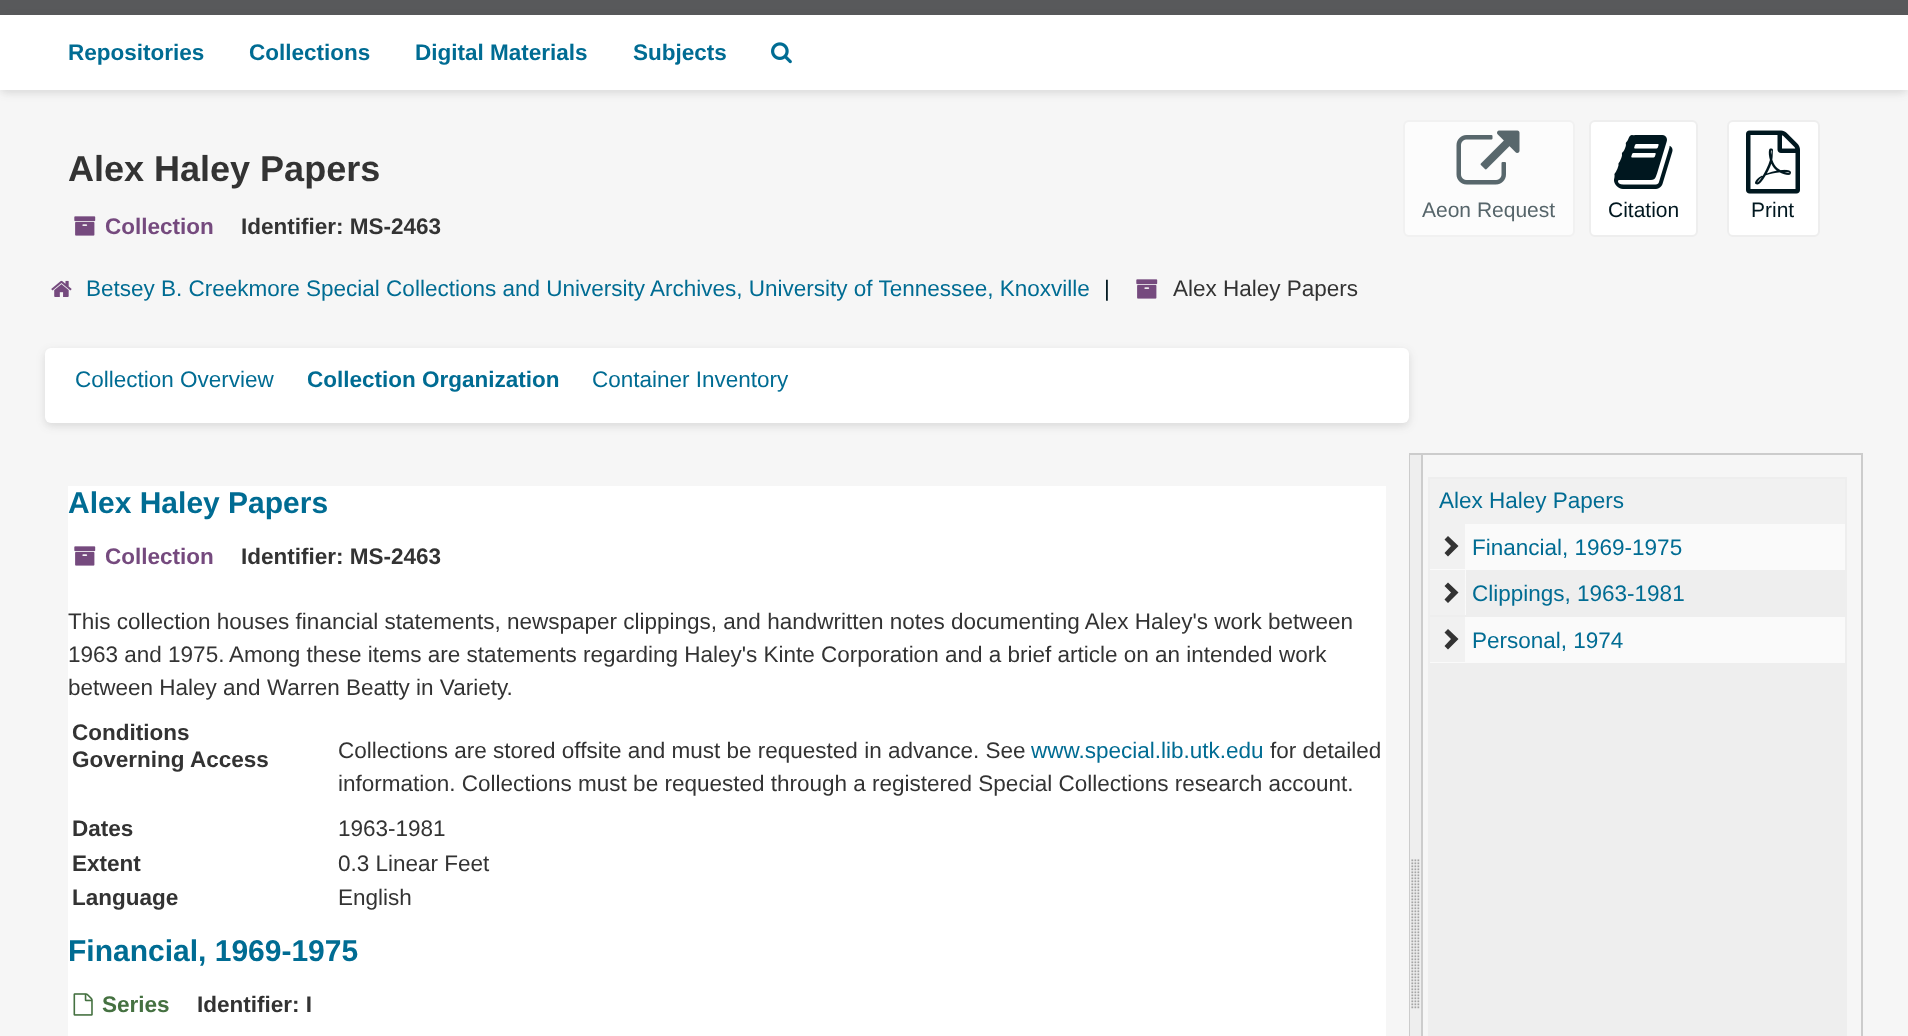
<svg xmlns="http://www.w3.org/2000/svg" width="1908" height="1036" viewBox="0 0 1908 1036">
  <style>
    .t1 { font: bold 22.5px Liberation Sans; fill: #006c93; }
    .t2 { font: bold 36px Liberation Sans; fill: #333; }
    .t3 { font: bold 22.5px Liberation Sans; fill: #754a7e; }
    .t4 { font: bold 22.5px Liberation Sans; fill: #333; }
    .t5 { font: 21px Liberation Sans; fill: #56656a; }
    .t6 { font: 21px Liberation Sans; fill: #00171f; }
    .t7 { font: 22.5px Liberation Sans; fill: #006c93; }
    .t8 { font: 22.5px Liberation Sans; fill: #00171f; }
    .t9 { font: 22.5px Liberation Sans; fill: #333; }
    .t10 { font: bold 30px Liberation Sans; fill: #006c93; }
    .t11 { font: bold 22.5px Liberation Sans; fill: #457141; }
  </style>
  <defs>
    <linearGradient id="g1" gradientUnits="userSpaceOnUse" x1="1430" y1="546" x2="1502" y2="546"><stop offset="0" stop-color="#f1f1f1"/><stop offset="0.48" stop-color="#f1f1f1"/><stop offset="0.5" stop-color="#fff"/><stop offset="0.5" stop-color="#f1f1f1"/><stop offset="0.98" stop-color="#f1f1f1"/><stop offset="1" stop-color="#fff"/></linearGradient>
    <linearGradient id="g2" gradientUnits="userSpaceOnUse" x1="1430" y1="593" x2="1502" y2="593"><stop offset="0" stop-color="#f1f1f1"/><stop offset="0.48" stop-color="#f1f1f1"/><stop offset="0.5" stop-color="#fff"/><stop offset="0.5" stop-color="#f1f1f1"/><stop offset="0.98" stop-color="#f1f1f1"/><stop offset="1" stop-color="#fff"/></linearGradient>
    <linearGradient id="g3" gradientUnits="userSpaceOnUse" x1="1430" y1="639" x2="1502" y2="639"><stop offset="0" stop-color="#f1f1f1"/><stop offset="0.48" stop-color="#f1f1f1"/><stop offset="0.5" stop-color="#fff"/><stop offset="0.5" stop-color="#f1f1f1"/><stop offset="0.98" stop-color="#f1f1f1"/><stop offset="1" stop-color="#fff"/></linearGradient>
  </defs>
  <rect width="100%" height="100%" fill="#f6f6f6"/>
  <rect x="0" y="0" width="1908" height="15" fill="#58595b"/>
  <rect x="0" y="18" width="1908" height="75" rx="6" fill="#33333326" filter="blur(4px)"/>
  <rect x="0" y="15" width="1908" height="75" fill="#fff"/>
  <text x="68" y="60" class="t1">Repositories</text>
  <text x="249" y="60" class="t1">Collections</text>
  <text x="415" y="60" class="t1">Digital Materials</text>
  <text x="633" y="60" class="t1">Subjects</text>
  <image x="771" y="42" width="21" height="22" href="images/1.png"/>
  <text x="68" y="181" class="t2">Alex Haley Papers</text>
  <image x="74" y="216" width="22" height="20" href="images/2.png"/>
  <text x="105" y="234" class="t3">Collection</text>
  <text x="241" y="234" class="t4">Identifier: MS-2463</text>
  <rect x="1404" y="121" width="170" height="115" rx="5" fill="#fcfcfc" stroke="#f1f1f1" stroke-width="2"/>
  <image x="1456" y="130" width="64" height="55" href="images/3.png"/>
  <text x="1422" y="217" class="t5">Aeon Request</text>
  <rect x="1590" y="121" width="107" height="115" rx="5" fill="#fff" stroke="#eee" stroke-width="2"/>
  <image x="1614" y="135" width="59" height="54" href="images/4.png"/>
  <text x="1608" y="217" class="t6">Citation</text>
  <rect x="1728" y="121" width="91" height="115" rx="5" fill="#fff" stroke="#eee" stroke-width="2"/>
  <image x="1746" y="130" width="54" height="64" href="images/5.png"/>
  <text x="1751" y="217" class="t6">Print</text>
  <image x="51" y="280" width="21" height="17" href="images/6.png"/>
  <text x="86" y="296" class="t7">Betsey B. Creekmore Special Collections and University Archives, University of Tennessee, Knoxville</text>
  <text x="1104" y="296" class="t8">|</text>
  <image x="1136" y="279" width="22" height="20" href="images/2.png"/>
  <text x="1173" y="296" class="t9">Alex Haley Papers</text>
  <rect x="45" y="351" width="1364" height="75" rx="6" fill="#33333326" filter="blur(4px)"/>
  <rect x="45" y="348" width="1364" height="75" rx="6" fill="#fff"/>
  <text x="75" y="387" class="t7">Collection Overview</text>
  <text x="307" y="387" class="t1">Collection Organization</text>
  <text x="592" y="387" class="t7">Container Inventory</text>
  <rect x="68" y="486" width="1318" height="550" fill="#fff"/>
  <text x="68" y="513" class="t10">Alex Haley Papers</text>
  <image x="74" y="546" width="22" height="20" href="images/7.png"/>
  <text x="105" y="564" class="t3">Collection</text>
  <text x="241" y="564" class="t4">Identifier: MS-2463</text>
  <text x="68" y="629" class="t9">This collection houses financial statements, newspaper clippings, and handwritten notes documenting Alex Haley's work between</text>
  <text x="68" y="662" class="t9">1963 and 1975.</text>
  <text x="229" y="662" class="t9">Among these items are statements regarding Haley's Kinte Corporation and a brief article on an intended work</text>
  <text x="68" y="695" class="t9">between Haley and Warren Beatty in Variety.</text>
  <text x="72" y="740" class="t4">Conditions</text>
  <text x="72" y="767" class="t4">Governing Access</text>
  <text x="338" y="758" class="t9">Collections are stored offsite and must be requested in advance. See</text>
  <text x="1031" y="758" class="t7">www.special.lib.utk.edu</text>
  <text x="1270" y="758" class="t9">for detailed</text>
  <text x="338" y="791" class="t9">information. Collections must be requested through a registered Special Collections research account.</text>
  <text x="72" y="836" class="t4">Dates</text>
  <text x="338" y="836" class="t9">1963-1981</text>
  <text x="72" y="871" class="t4">Extent</text>
  <text x="338" y="871" class="t9">0.3 Linear Feet</text>
  <text x="72" y="905" class="t4">Language</text>
  <text x="338" y="905" class="t9">English</text>
  <text x="68" y="961" class="t10">Financial, 1969-1975</text>
  <image x="73" y="993" width="20" height="23" href="images/8.png"/>
  <text x="102" y="1012" class="t11">Series</text>
  <text x="197" y="1012" class="t4">Identifier: I</text>
  <rect x="1410" y="454" width="452" height="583" fill="none" stroke="#ccc" stroke-width="2"/>
  <rect x="1410" y="455" width="11" height="581" fill="#eee"/>
  <image x="1411" y="859" width="9" height="150" href="images/9.png"/>
  <rect x="1421" y="455" width="2" height="581" fill="#ccc"/>
  <rect x="1428" y="477" width="419" height="559" fill="#eee"/>
  <rect x="1430" y="479" width="415" height="45" fill="#f1f1f1"/>
  <text x="1439" y="508" class="t7">Alex Haley Papers</text>
  <rect x="1430" y="524" width="415" height="46" fill="#fafafa"/>
  <rect x="1430" y="524" width="35" height="45" fill="url(#g1)"/>
  <path d="M1458.5 546L1448 556.5L1444.5 553L1451 546L1444.5 539.5L1448 536Z" fill="#333"/>
  <text x="1472" y="555" class="t7">Financial, 1969-1975</text>
  <rect x="1430" y="570" width="36" height="45" fill="url(#g2)"/>
  <path d="M1458.5 592.5L1448 603L1444.5 599.5L1451 592.5L1444.5 586L1448 582.5Z" fill="#333"/>
  <text x="1472" y="601" class="t7">Clippings, 1963-1981</text>
  <rect x="1430" y="617" width="415" height="46" fill="#fafafa"/>
  <rect x="1430" y="617" width="35" height="45" fill="url(#g3)"/>
  <path d="M1458.5 639L1448 649.5L1444.5 646L1451 639L1444.5 632.5L1448 629Z" fill="#333"/>
  <text x="1472" y="648" class="t7">Personal, 1974</text>
</svg>
